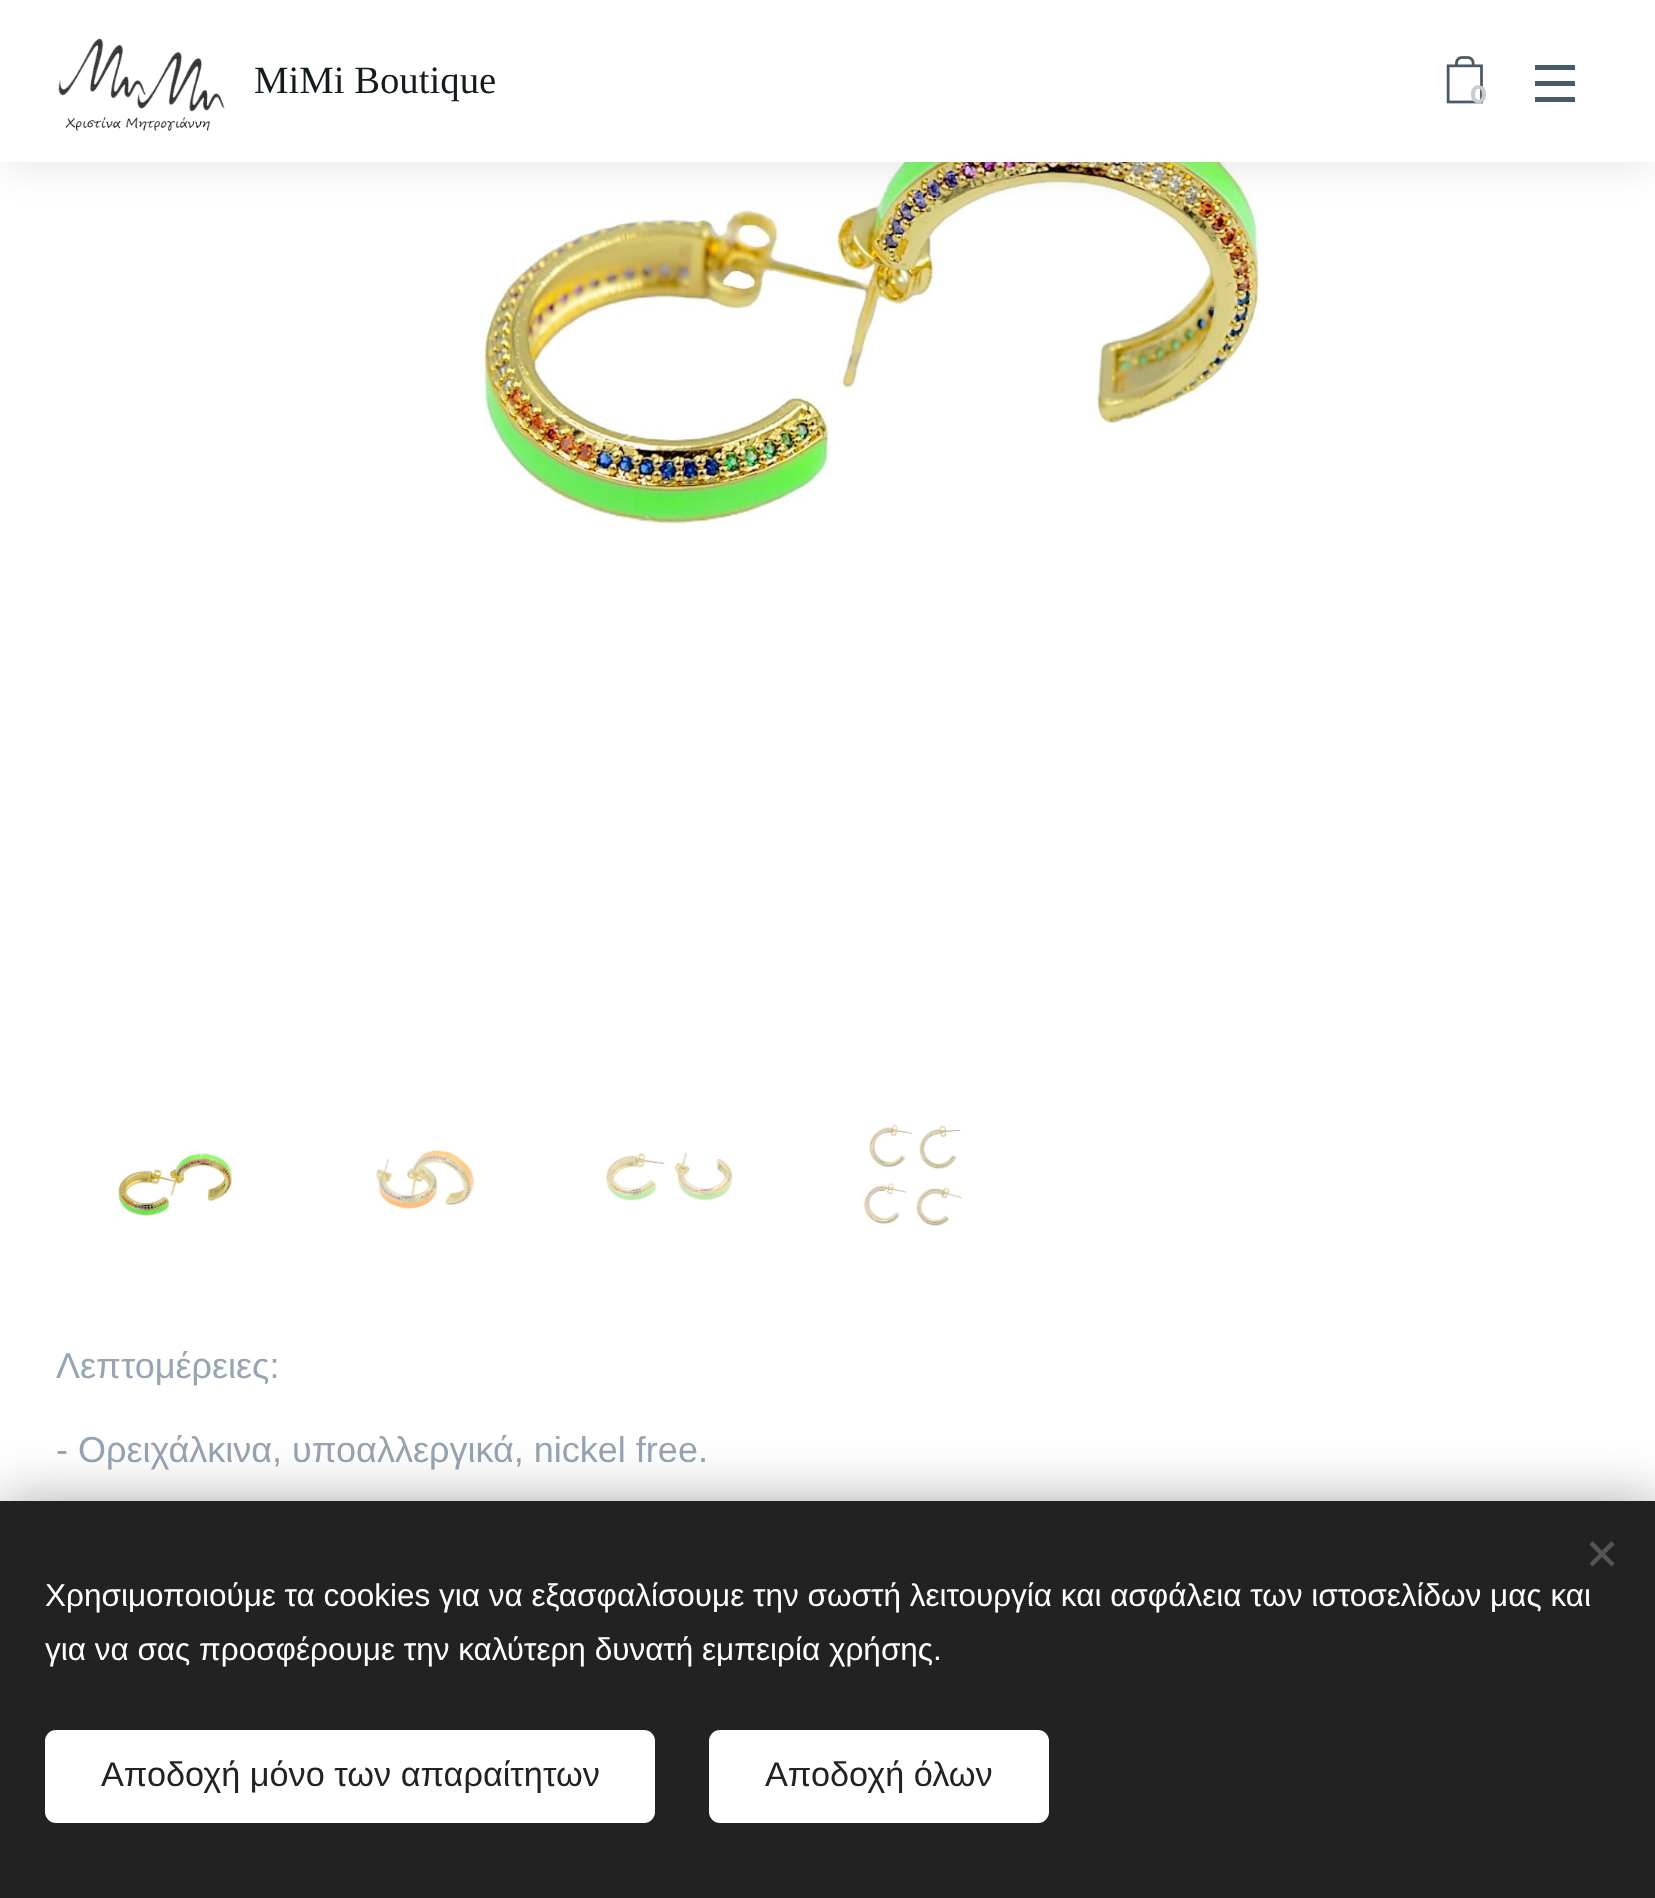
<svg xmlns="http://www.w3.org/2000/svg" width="1655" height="1898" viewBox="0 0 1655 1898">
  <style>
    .t1 { font: 38.75px Tinos; fill: #141b1e; }
    .t2 { font: bold 25px Montserrat; fill: #c7ccd1; }
    .t3 { font: 36px Liberation Sans; fill: #96a4b3; }
    .t4 { font: 31.5px Liberation Sans; fill: #fff; }
    .t5 { font: 34.25px Liberation Sans; fill: #222; }
  </style>
  <rect width="100%" height="100%" fill="#fff"/>
  <image x="481" y="162" width="782" height="363" href="images/3.png"/>
  <rect x="0" y="11" width="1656" height="162" fill="#00000012" filter="blur(17px)"/>
  <rect x="0" y="0" width="1655" height="162" fill="#fff"/>
  <image x="58" y="38" width="167" height="93" href="images/1.png"/>
  <text x="254" y="93" class="t1">MiMi Boutique</text>
  <image x="1446" y="56" width="37" height="48" href="images/2.png"/>
  <text x="1470" y="103" class="t2">0</text>
  <rect x="1535" y="81" width="40" height="5" fill="#495968"/>
  <rect x="1535" y="65" width="40" height="5" fill="#495968"/>
  <rect x="1535" y="97" width="40" height="5" fill="#495968"/>
  <image x="118" y="1153" width="114" height="63" href="images/4.png"/>
  <image x="376" y="1150" width="99" height="59" href="images/5.png"/>
  <image x="606" y="1152" width="127" height="49" href="images/6.png"/>
  <image x="864" y="1124" width="98" height="102" href="images/7.png"/>
  <text x="56" y="1378" class="t3">Λεπτομέρειες:</text>
  <text x="56" y="1462" class="t3">- Ορειχάλκινα, υποαλλεργικά, nickel free.</text>
  <rect x="0" y="1501" width="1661" height="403" fill="#00000054" filter="blur(28px)"/>
  <rect x="0" y="1501" width="1655" height="397" fill="#222"/>
  <path d="M1589.5 1563.5L1611.5 1541L1614.5 1544.5L1592.5 1566.5Z" fill="#555"/>
  <path d="M1592.5 1541L1614.5 1563.5L1611.5 1566.5L1589.5 1544.5Z" fill="#555"/>
  <text x="45" y="1606" class="t4">Χρησιμοποιούμε τα cookies για να εξασφαλίσουμε την σωστή λειτουργία και ασφάλεια των ιστοσελίδων μας και</text>
  <text x="45" y="1660" class="t4">για να σας προσφέρουμε την καλύτερη δυνατή εμπειρία χρήσης.</text>
  <rect x="45" y="1730" width="610" height="93" rx="11" fill="#fff"/>
  <text x="101" y="1786" class="t5">Αποδοχή μόνο των απαραίτητων</text>
  <rect x="709" y="1730" width="340" height="93" rx="11" fill="#fff"/>
  <text x="765" y="1786" class="t5">Αποδοχή όλων</text>
</svg>
